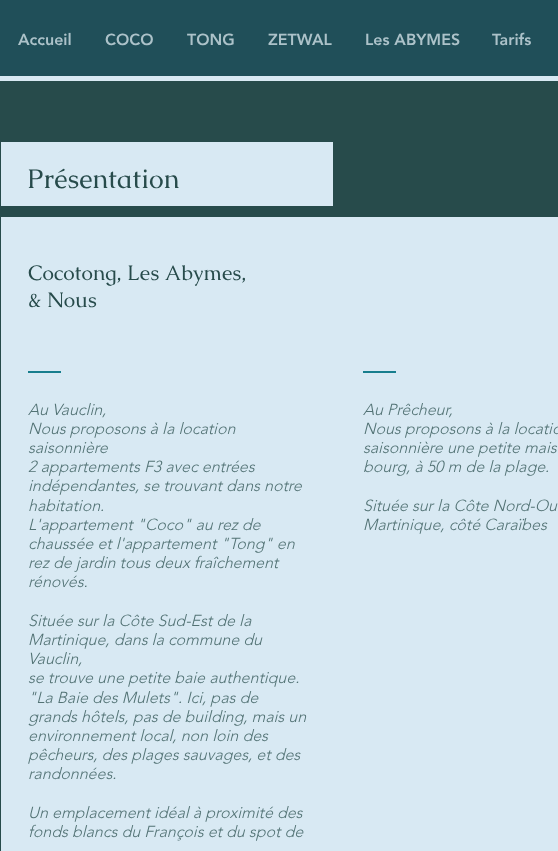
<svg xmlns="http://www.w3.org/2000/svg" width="558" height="851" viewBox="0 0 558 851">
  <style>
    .t1 { font: 900 16px 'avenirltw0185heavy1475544'; fill: #acc2c9; }
    .t2 { font: 27px Caudex; fill: #274b4b; }
    .t3 { font: 21px Caudex; fill: #274b4b; }
    .t4 { font: italic 300 16px 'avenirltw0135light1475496'; fill: #537375; }
  </style>
  <rect width="100%" height="100%" fill="#274b4b"/>
  <rect x="0" y="76" width="558" height="5" fill="#d8e9f3"/>
  <rect x="0" y="0" width="558" height="76" fill="#204f59"/>
  <text x="18" y="45" class="t1">Accueil</text>
  <text x="105" y="45" class="t1">COCO</text>
  <text x="187" y="45" class="t1">TONG</text>
  <text x="268" y="45" class="t1">ZETWAL</text>
  <text x="365" y="45" class="t1">Les ABYMES</text>
  <text x="492" y="45" class="t1">Tarifs</text>
  <rect x="1" y="142" width="332" height="64" fill="#d8e9f3"/>
  <text x="27" y="188" class="t2">Présentation</text>
  <rect x="1" y="217" width="557" height="634" fill="#d8e9f3"/>
  <text x="28" y="280" class="t3">Cocotong, Les Abymes,</text>
  <text x="28" y="307" class="t3">&amp; Nous</text>
  <rect x="28" y="371" width="33" height="2" fill="#177e8d"/>
  <rect x="363" y="371" width="33" height="2" fill="#177e8d"/>
  <text x="28" y="415" class="t4">Au Vauclin,</text>
  <text x="28" y="434" class="t4">Nous proposons à la location</text>
  <text x="28" y="453" class="t4">saisonnière</text>
  <text x="28" y="472" class="t4">2 appartements F3 avec entrées</text>
  <text x="28" y="491" class="t4">indépendantes, se trouvant dans notre</text>
  <text x="28" y="511" class="t4">habitation.</text>
  <text x="28" y="530" class="t4">L'appartement "Coco" au rez de</text>
  <text x="28" y="549" class="t4">chaussée et l'appartement "Tong" en</text>
  <text x="28" y="568" class="t4">rez de jardin tous deux fraîchement</text>
  <text x="28" y="587" class="t4">rénovés.</text>
  <text x="28" y="626" class="t4">Située sur la Côte Sud-Est de la</text>
  <text x="28" y="645" class="t4">Martinique, dans la commune du</text>
  <text x="28" y="664" class="t4">Vauclin,</text>
  <text x="28" y="683" class="t4">se trouve une petite baie authentique.</text>
  <text x="28" y="703" class="t4">"La Baie des Mulets". Ici, pas de</text>
  <text x="28" y="722" class="t4">grands hôtels, pas de building, mais un</text>
  <text x="28" y="741" class="t4">environnement local, non loin des</text>
  <text x="28" y="760" class="t4">pêcheurs, des plages sauvages, et des</text>
  <text x="28" y="779" class="t4">randonnées.</text>
  <text x="28" y="818" class="t4">Un emplacement idéal à proximité des</text>
  <text x="28" y="837" class="t4">fonds blancs du François et du spot de</text>
  <text x="363" y="415" class="t4">Au Prêcheur,</text>
  <text x="363" y="434" class="t4">Nous proposons à la locatio</text>
  <text x="363" y="453" class="t4">saisonnière une petite mais</text>
  <text x="363" y="472" class="t4">bourg, à 50 m de la plage.</text>
  <text x="363" y="511" class="t4">Située sur la Côte Nord-Ou</text>
  <text x="363" y="530" class="t4">Martinique, côté Caraïbes</text>
</svg>
